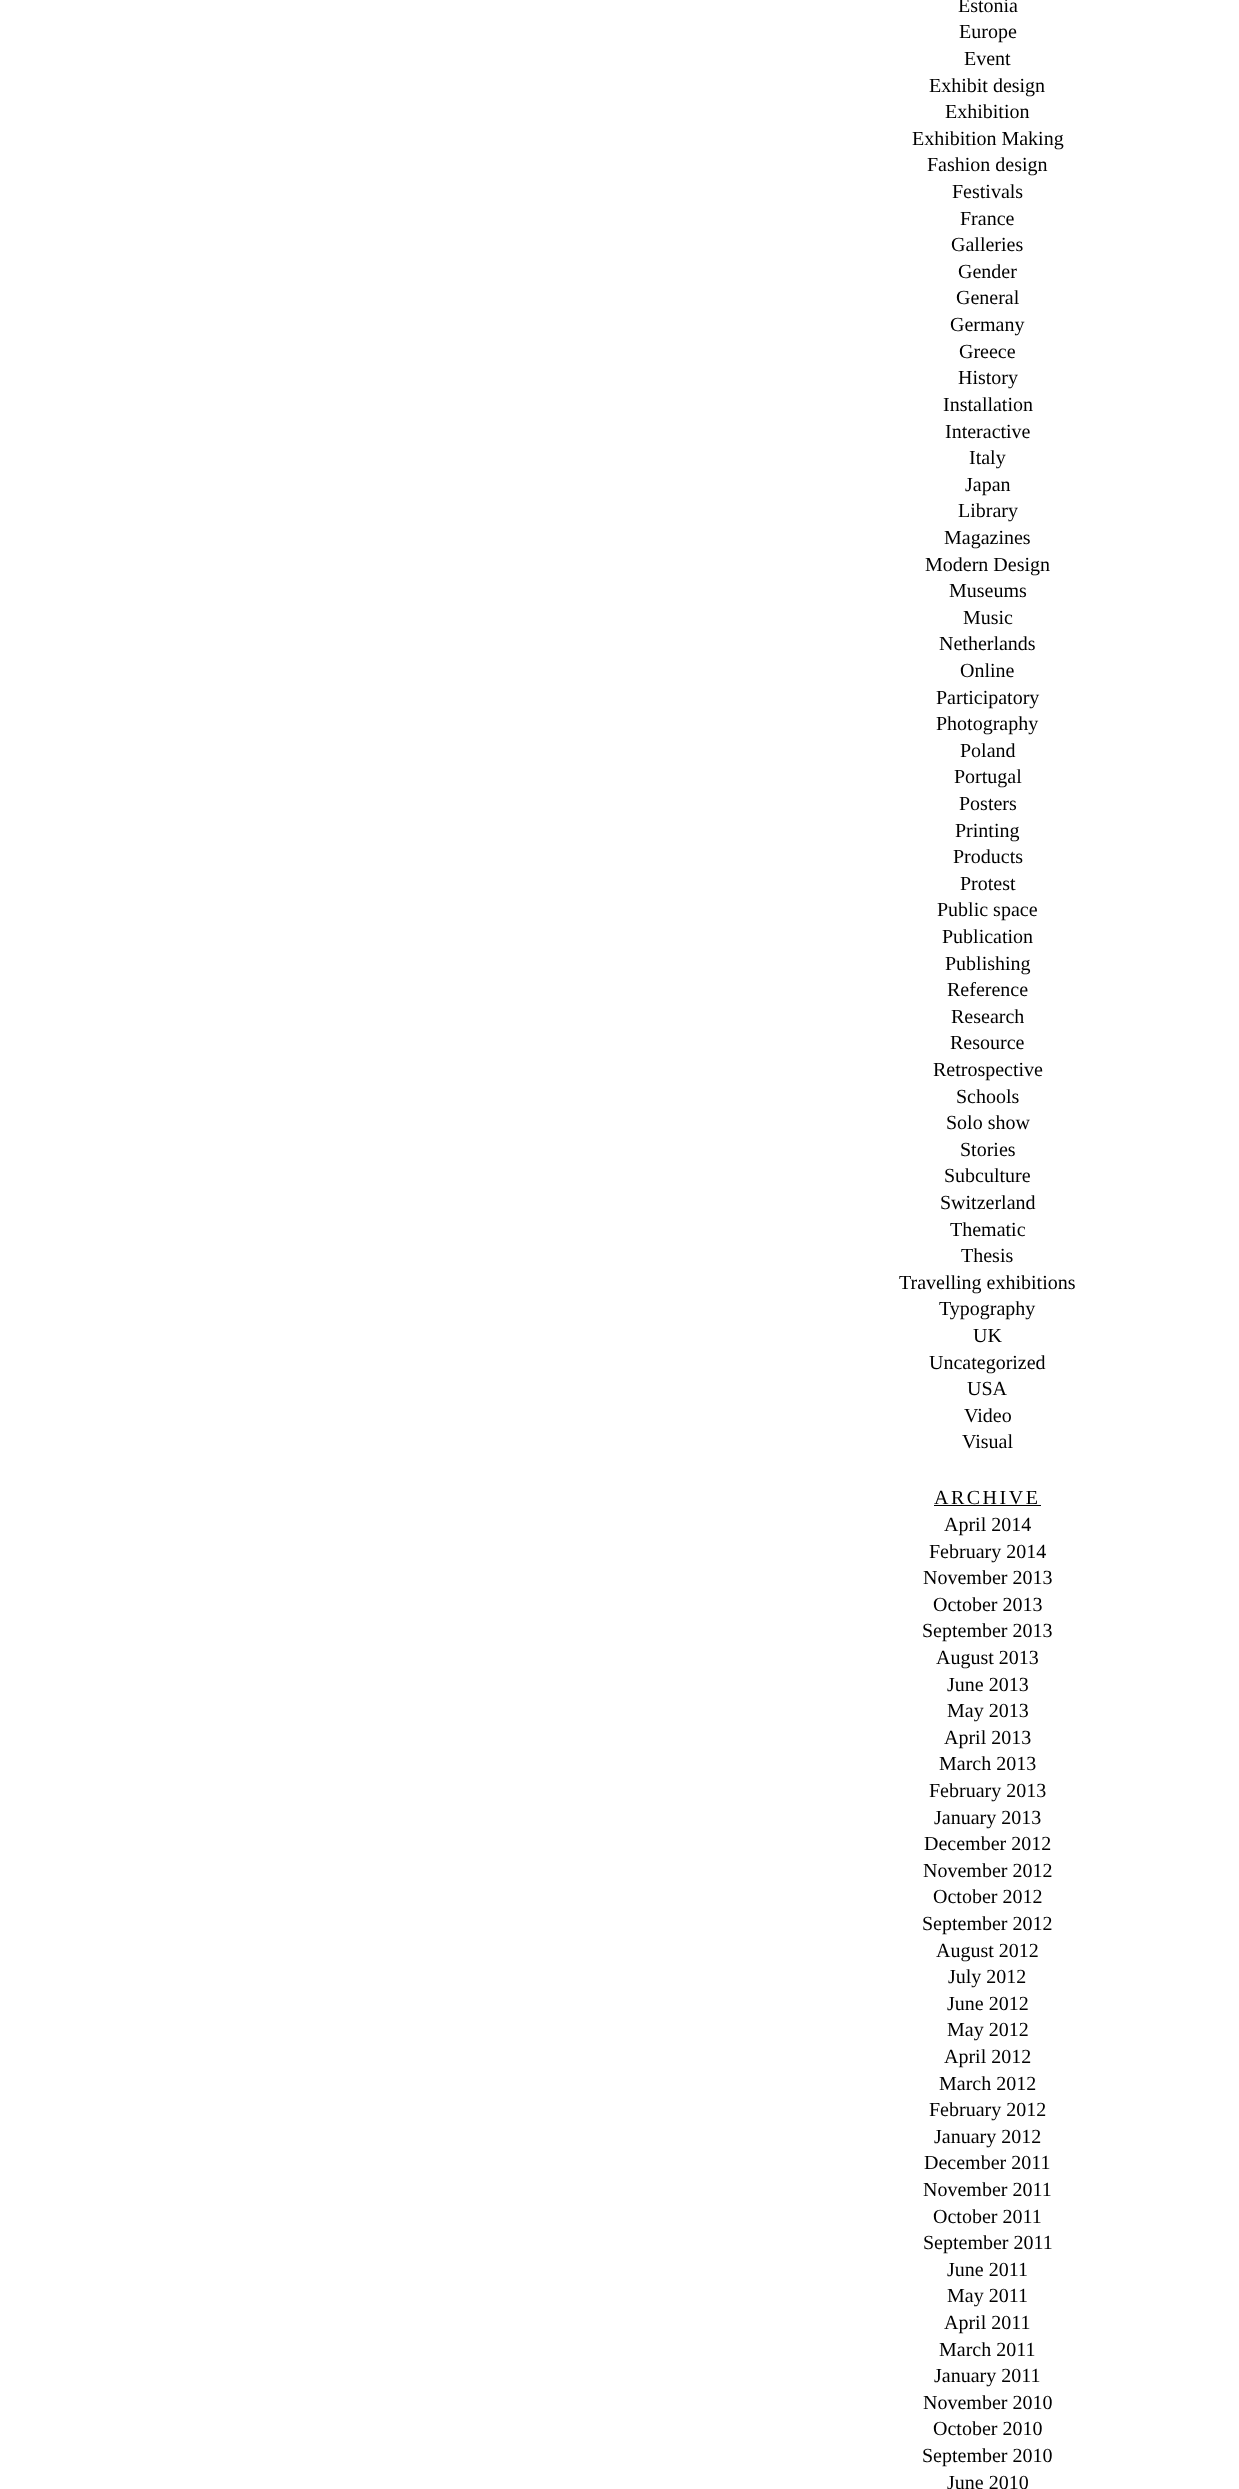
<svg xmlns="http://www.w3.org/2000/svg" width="1239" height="2489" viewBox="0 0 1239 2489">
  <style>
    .t1 { font: 20px Liberation Serif; fill: #000; }
    .t2 { font: 20px Liberation Serif; letter-spacing: 2.5px; fill: #000; }
  </style>
  <rect width="100%" height="100%" fill="#fff"/>
  <text x="958" y="12" class="t1">Estonia</text>
  <text x="959" y="38" class="t1">Europe</text>
  <text x="964" y="65" class="t1">Event</text>
  <text x="929" y="92" class="t1">Exhibit design</text>
  <text x="945" y="118" class="t1">Exhibition</text>
  <text x="912" y="145" class="t1">Exhibition Making</text>
  <text x="927" y="171" class="t1">Fashion design</text>
  <text x="952" y="198" class="t1">Festivals</text>
  <text x="960" y="225" class="t1">France</text>
  <text x="951" y="251" class="t1">Galleries</text>
  <text x="958" y="278" class="t1">Gender</text>
  <text x="956" y="304" class="t1">General</text>
  <text x="950" y="331" class="t1">Germany</text>
  <text x="959" y="358" class="t1">Greece</text>
  <text x="958" y="384" class="t1">History</text>
  <text x="943" y="411" class="t1">Installation</text>
  <text x="945" y="438" class="t1">Interactive</text>
  <text x="969" y="464" class="t1">Italy</text>
  <text x="965" y="491" class="t1">Japan</text>
  <text x="958" y="517" class="t1">Library</text>
  <text x="944" y="544" class="t1">Magazines</text>
  <text x="925" y="571" class="t1">Modern Design</text>
  <text x="949" y="597" class="t1">Museums</text>
  <text x="963" y="624" class="t1">Music</text>
  <text x="939" y="650" class="t1">Netherlands</text>
  <text x="960" y="677" class="t1">Online</text>
  <text x="936" y="704" class="t1">Participatory</text>
  <text x="936" y="730" class="t1">Photography</text>
  <text x="960" y="757" class="t1">Poland</text>
  <text x="954" y="783" class="t1">Portugal</text>
  <text x="959" y="810" class="t1">Posters</text>
  <text x="955" y="837" class="t1">Printing</text>
  <text x="953" y="863" class="t1">Products</text>
  <text x="960" y="890" class="t1">Protest</text>
  <text x="937" y="916" class="t1">Public space</text>
  <text x="942" y="943" class="t1">Publication</text>
  <text x="945" y="970" class="t1">Publishing</text>
  <text x="947" y="996" class="t1">Reference</text>
  <text x="951" y="1023" class="t1">Research</text>
  <text x="950" y="1049" class="t1">Resource</text>
  <text x="933" y="1076" class="t1">Retrospective</text>
  <text x="956" y="1103" class="t1">Schools</text>
  <text x="946" y="1129" class="t1">Solo show</text>
  <text x="960" y="1156" class="t1">Stories</text>
  <text x="944" y="1182" class="t1">Subculture</text>
  <text x="940" y="1209" class="t1">Switzerland</text>
  <text x="950" y="1236" class="t1">Thematic</text>
  <text x="961" y="1262" class="t1">Thesis</text>
  <text x="899" y="1289" class="t1">Travelling exhibitions</text>
  <text x="939" y="1315" class="t1">Typography</text>
  <text x="973" y="1342" class="t1">UK</text>
  <text x="929" y="1369" class="t1">Uncategorized</text>
  <text x="967" y="1395" class="t1">USA</text>
  <text x="964" y="1422" class="t1">Video</text>
  <text x="962" y="1448" class="t1">Visual</text>
  <text x="934" y="1504" class="t2">ARCHIVE</text>
  <rect x="934" y="1505" width="107" height="1" fill="#000"/>
  <text x="944" y="1531" class="t1">April 2014</text>
  <text x="929" y="1558" class="t1">February 2014</text>
  <text x="923" y="1584" class="t1">November 2013</text>
  <text x="933" y="1611" class="t1">October 2013</text>
  <text x="922" y="1637" class="t1">September 2013</text>
  <text x="936" y="1664" class="t1">August 2013</text>
  <text x="947" y="1691" class="t1">June 2013</text>
  <text x="947" y="1717" class="t1">May 2013</text>
  <text x="944" y="1744" class="t1">April 2013</text>
  <text x="939" y="1770" class="t1">March 2013</text>
  <text x="929" y="1797" class="t1">February 2013</text>
  <text x="934" y="1824" class="t1">January 2013</text>
  <text x="924" y="1850" class="t1">December 2012</text>
  <text x="923" y="1877" class="t1">November 2012</text>
  <text x="933" y="1903" class="t1">October 2012</text>
  <text x="922" y="1930" class="t1">September 2012</text>
  <text x="936" y="1957" class="t1">August 2012</text>
  <text x="948" y="1983" class="t1">July 2012</text>
  <text x="947" y="2010" class="t1">June 2012</text>
  <text x="947" y="2036" class="t1">May 2012</text>
  <text x="944" y="2063" class="t1">April 2012</text>
  <text x="939" y="2090" class="t1">March 2012</text>
  <text x="929" y="2116" class="t1">February 2012</text>
  <text x="934" y="2143" class="t1">January 2012</text>
  <text x="924" y="2169" class="t1">December 2011</text>
  <text x="923" y="2196" class="t1">November 2011</text>
  <text x="933" y="2223" class="t1">October 2011</text>
  <text x="923" y="2249" class="t1">September 2011</text>
  <text x="947" y="2276" class="t1">June 2011</text>
  <text x="947" y="2302" class="t1">May 2011</text>
  <text x="944" y="2329" class="t1">April 2011</text>
  <text x="939" y="2356" class="t1">March 2011</text>
  <text x="934" y="2382" class="t1">January 2011</text>
  <text x="923" y="2409" class="t1">November 2010</text>
  <text x="933" y="2435" class="t1">October 2010</text>
  <text x="922" y="2462" class="t1">September 2010</text>
  <text x="947" y="2489" class="t1">June 2010</text>
</svg>
